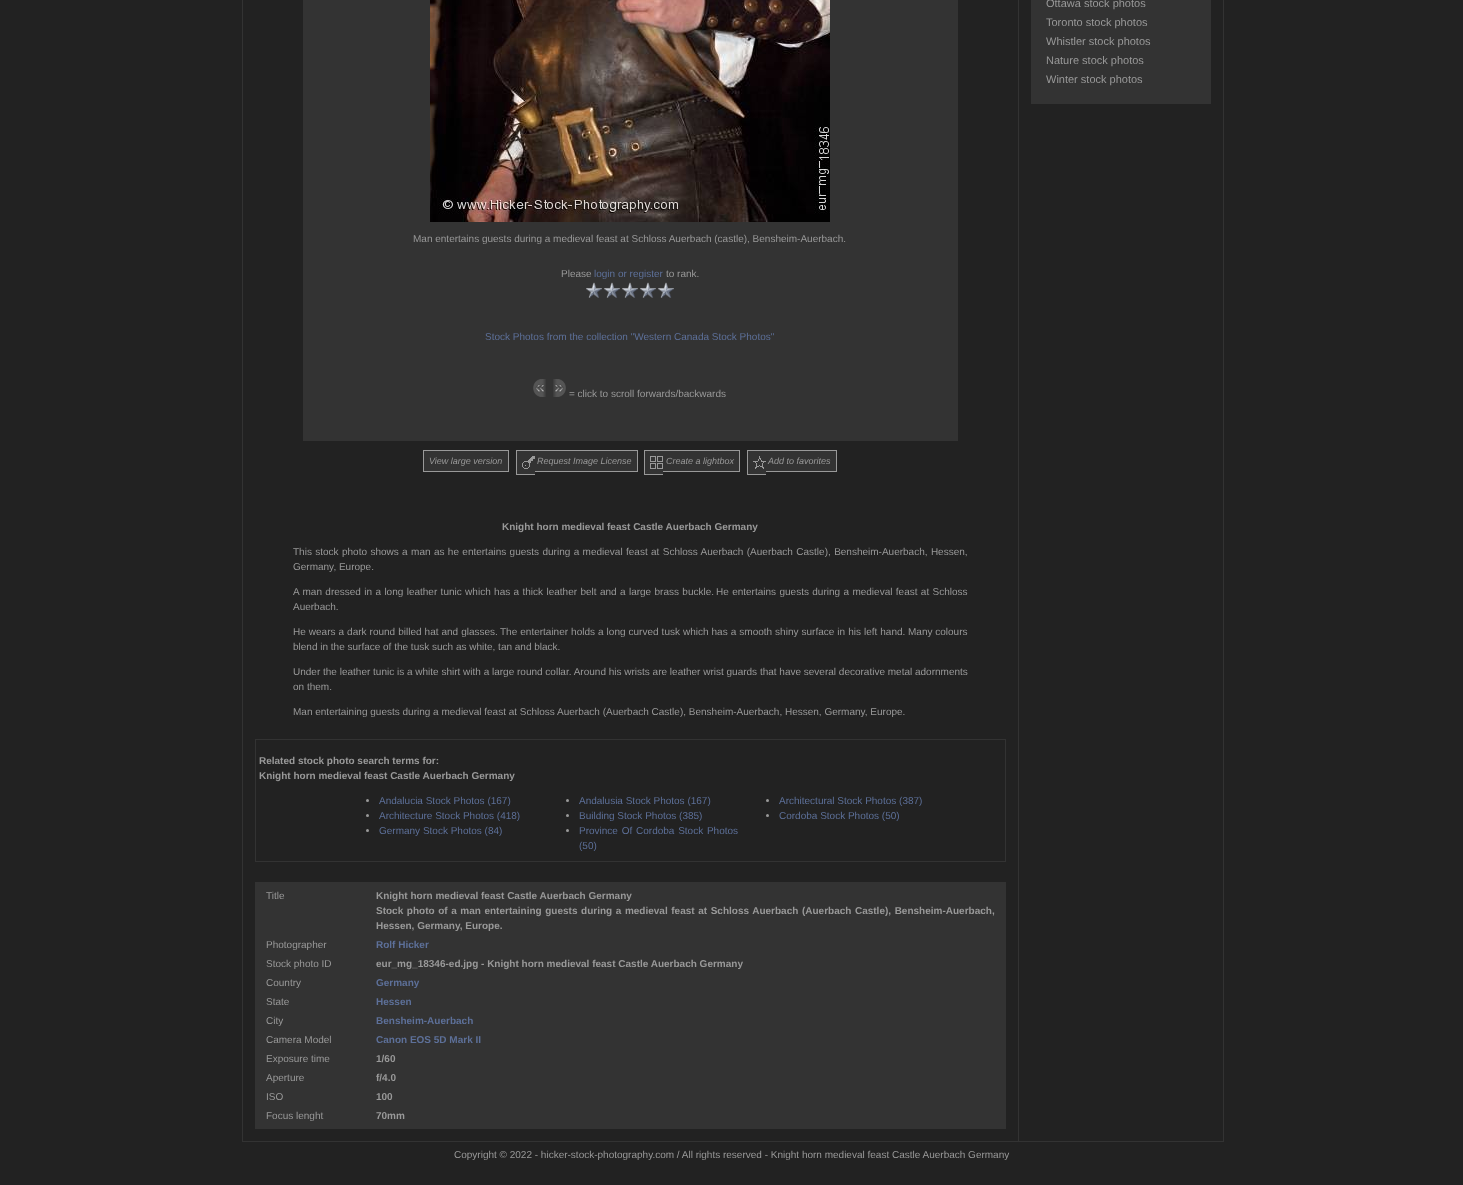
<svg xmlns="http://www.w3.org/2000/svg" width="1463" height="1185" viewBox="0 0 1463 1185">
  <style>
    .t1 { font: 11px Liberation Sans; fill: #999; }
    .t2 { font: 10px Liberation Sans; fill: #999; }
    .t3 { font: 10px Liberation Sans; fill: #5d7099; }
    .t4 { font: italic 9px Liberation Sans; fill: #999; }
    .t5 { font: bold 10px Liberation Sans; fill: #999; }
    .t6 { font: bold 10px Liberation Sans; fill: #5d7099; }
  </style>
  <rect width="100%" height="100%" fill="#222"/>
  <rect x="242.5" y="-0.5" width="981" height="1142" fill="none" stroke="#333"/>
  <rect x="1031" y="0" width="180" height="104" fill="#333"/>
  <text x="1046" y="7" class="t1">Ottawa stock photos</text>
  <text x="1046" y="26" class="t1">Toronto stock photos</text>
  <text x="1046" y="45" class="t1">Whistler stock photos</text>
  <text x="1046" y="64" class="t1">Nature stock photos</text>
  <text x="1046" y="83" class="t1">Winter stock photos</text>
  <rect x="1018" y="0" width="1" height="1141" fill="#333"/>
  <rect x="303" y="0" width="655" height="441" fill="#333"/>
  <image x="430" y="0" width="400" height="222" href="images/1.png"/>
  <text x="413" y="242" class="t2">Man entertains guests during a medieval feast at Schloss Auerbach (castle), Bensheim-Auerbach.</text>
  <text x="561" y="277" class="t2">Please</text>
  <text x="594" y="277" class="t3">login or register</text>
  <text x="666" y="277" class="t2">to rank.</text>
  <image x="586" y="282" width="16" height="16" href="images/2.png"/>
  <image x="604" y="282" width="16" height="16" href="images/2.png"/>
  <image x="622" y="282" width="16" height="16" href="images/2.png"/>
  <image x="640" y="282" width="16" height="16" href="images/2.png"/>
  <image x="658" y="282" width="16" height="16" href="images/2.png"/>
  <text x="485" y="340" class="t3">Stock Photos from the collection "Western Canada Stock Photos"</text>
  <image x="533" y="379" width="13" height="18" href="images/3.png"/>
  <image x="553" y="379" width="13" height="18" href="images/4.png"/>
  <text x="569" y="397" class="t2">= click to scroll forwards/backwards</text>
  <rect x="423.5" y="450.5" width="85" height="21" fill="#333" stroke="#999"/>
  <text x="429" y="464" class="t4">View large version</text>
  <rect x="517" y="451" width="18" height="23" fill="#333"/>
  <image x="522" y="456" width="13" height="13" href="images/5.png"/>
  <rect x="535" y="451" width="102" height="20" fill="#333"/>
  <text x="537" y="464" class="t4">Request Image License</text>
  <rect x="516" y="450" width="122" height="1" fill="#999"/>
  <rect x="516" y="474" width="19" height="1" fill="#999"/>
  <rect x="516" y="450" width="1" height="25" fill="#999"/>
  <rect x="637" y="450" width="1" height="22" fill="#999"/>
  <rect x="535" y="471" width="103" height="1" fill="#999"/>
  <rect x="645" y="451" width="18" height="23" fill="#333"/>
  <image x="650" y="456" width="13" height="13" href="images/6.png"/>
  <rect x="663" y="451" width="76" height="20" fill="#333"/>
  <text x="666" y="464" class="t4">Create a lightbox</text>
  <rect x="644" y="450" width="96" height="1" fill="#999"/>
  <rect x="644" y="474" width="19" height="1" fill="#999"/>
  <rect x="644" y="450" width="1" height="25" fill="#999"/>
  <rect x="739" y="450" width="1" height="22" fill="#999"/>
  <rect x="663" y="471" width="77" height="1" fill="#999"/>
  <rect x="748" y="451" width="18" height="23" fill="#333"/>
  <image x="753" y="456" width="13" height="13" href="images/7.png"/>
  <rect x="766" y="451" width="70" height="20" fill="#333"/>
  <text x="768" y="464" class="t4">Add to favorites</text>
  <rect x="747" y="450" width="90" height="1" fill="#999"/>
  <rect x="747" y="474" width="19" height="1" fill="#999"/>
  <rect x="747" y="450" width="1" height="25" fill="#999"/>
  <rect x="836" y="450" width="1" height="22" fill="#999"/>
  <rect x="766" y="471" width="71" height="1" fill="#999"/>
  <text x="502" y="530" class="t5">Knight horn medieval feast Castle Auerbach Germany</text>
  <text x="293" y="555" word-spacing="0.6" class="t2">This stock photo shows a man as he entertains guests during a medieval feast at Schloss Auerbach (Auerbach Castle), Bensheim-Auerbach, Hessen,</text>
  <text x="293" y="570" class="t2">Germany, Europe.</text>
  <text x="293" y="595" word-spacing="0.6" class="t2">A man dressed in a long leather tunic which has a thick leather belt and a large brass buckle.</text>
  <text x="716" y="595" word-spacing="0.6" class="t2">He entertains guests during a medieval feast at Schloss</text>
  <text x="293" y="610" class="t2">Auerbach.</text>
  <text x="293" y="635" word-spacing="0.25" class="t2">He wears a dark round billed hat and glasses.</text>
  <text x="500" y="635" word-spacing="0.25" class="t2">The entertainer holds a long curved tusk which has a smooth shiny surface in his left hand.</text>
  <text x="908" y="635" class="t2">Many colours</text>
  <text x="293" y="650" class="t2">blend in the surface of the tusk such as white, tan and black.</text>
  <text x="293" y="675" class="t2">Under the leather tunic is a white shirt with a large round collar. Around his wrists are leather wrist guards that have several decorative metal adornments</text>
  <text x="293" y="690" class="t2">on them.</text>
  <text x="293" y="715" class="t2">Man entertaining guests during a medieval feast at Schloss Auerbach (Auerbach Castle), Bensheim-Auerbach, Hessen, Germany, Europe.</text>
  <rect x="255.5" y="739.5" width="750" height="122" fill="none" stroke="#333"/>
  <text x="259" y="764" class="t5">Related stock photo search terms for:</text>
  <text x="259" y="779" class="t5">Knight horn medieval feast Castle Auerbach Germany</text>
  <circle cx="367.5" cy="800.5" r="1.5" fill="#999"/>
  <text x="379" y="804" class="t3">Andalucia Stock Photos (167)</text>
  <circle cx="567.5" cy="800.5" r="1.5" fill="#999"/>
  <text x="579" y="804" class="t3">Andalusia Stock Photos (167)</text>
  <circle cx="767.5" cy="800.5" r="1.5" fill="#999"/>
  <text x="779" y="804" class="t3">Architectural Stock Photos (387)</text>
  <circle cx="367.5" cy="815.5" r="1.5" fill="#999"/>
  <text x="379" y="819" class="t3">Architecture Stock Photos (418)</text>
  <circle cx="567.5" cy="815.5" r="1.5" fill="#999"/>
  <text x="579" y="819" class="t3">Building Stock Photos (385)</text>
  <circle cx="767.5" cy="815.5" r="1.5" fill="#999"/>
  <text x="779" y="819" class="t3">Cordoba Stock Photos (50)</text>
  <circle cx="367.5" cy="830.5" r="1.5" fill="#999"/>
  <text x="379" y="834" class="t3">Germany Stock Photos (84)</text>
  <circle cx="567.5" cy="830.5" r="1.5" fill="#999"/>
  <text x="579" y="834" word-spacing="1" class="t3">Province Of Cordoba Stock Photos</text>
  <text x="579" y="849" class="t3">(50)</text>
  <rect x="255" y="882" width="751" height="247" fill="#333"/>
  <text x="266" y="899" class="t2">Title</text>
  <text x="376" y="899" class="t5">Knight horn medieval feast Castle Auerbach Germany</text>
  <text x="376" y="914" word-spacing="0.8" class="t5">Stock photo of a man entertaining guests during a medieval feast at Schloss Auerbach (Auerbach Castle), Bensheim-Auerbach,</text>
  <text x="376" y="929" class="t5">Hessen, Germany, Europe.</text>
  <text x="266" y="948" class="t2">Photographer</text>
  <text x="376" y="948" class="t6">Rolf Hicker</text>
  <text x="266" y="967" class="t2">Stock photo ID</text>
  <text x="376" y="967" class="t5">eur_mg_18346-ed.jpg - Knight horn medieval feast Castle Auerbach Germany</text>
  <text x="266" y="986" class="t2">Country</text>
  <text x="376" y="986" class="t6">Germany</text>
  <text x="266" y="1005" class="t2">State</text>
  <text x="376" y="1005" class="t6">Hessen</text>
  <text x="266" y="1024" class="t2">City</text>
  <text x="376" y="1024" class="t6">Bensheim-Auerbach</text>
  <text x="266" y="1043" class="t2">Camera Model</text>
  <text x="376" y="1043" class="t6">Canon EOS 5D Mark II</text>
  <text x="266" y="1062" class="t2">Exposure time</text>
  <text x="376" y="1062" class="t5">1/60</text>
  <text x="266" y="1081" class="t2">Aperture</text>
  <text x="376" y="1081" class="t5">f/4.0</text>
  <text x="266" y="1100" class="t2">ISO</text>
  <text x="376" y="1100" class="t5">100</text>
  <text x="266" y="1119" class="t2">Focus lenght</text>
  <text x="376" y="1119" class="t5">70mm</text>
  <text x="454" y="1158" class="t2">Copyright © 2022 - hicker-stock-photography.com / All rights reserved - Knight horn medieval feast Castle Auerbach Germany</text>
</svg>
